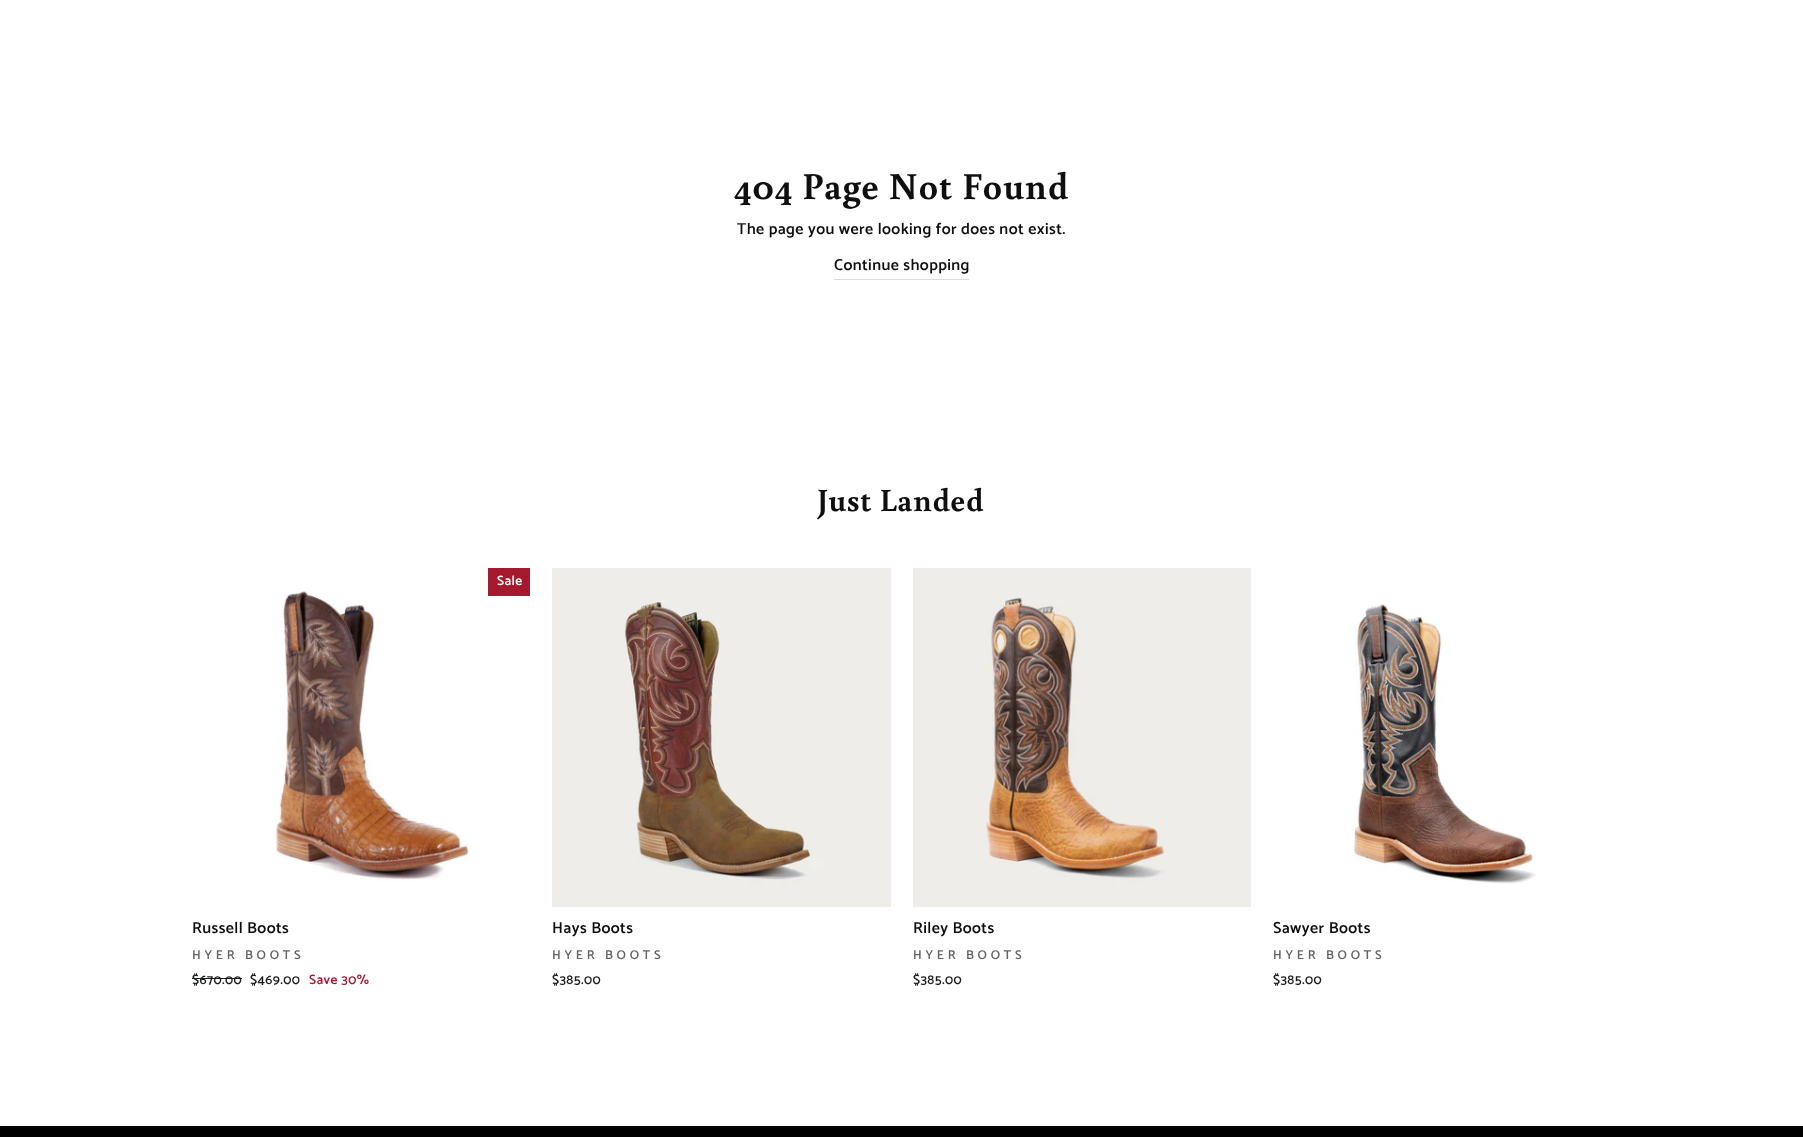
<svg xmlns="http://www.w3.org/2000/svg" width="1803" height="1137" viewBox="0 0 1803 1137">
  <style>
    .t1 { font: bold 38px Buenard; letter-spacing: 1px; fill: #0f0f0f; }
    .t2 { font: 600 16px Catamaran; letter-spacing: 0.4px; fill: #0f0f0f; }
    .t3 { font: bold 32.25px Buenard; letter-spacing: 0.75px; fill: #0f0f0f; }
    .t4 { font: 600 13.5px Catamaran; letter-spacing: 0.4px; fill: #fff; }
    .t5 { font: 600 12.75px Catamaran; letter-spacing: 3.75px; fill: #636363; }
    .t6 { font: 600 13.5px Catamaran; letter-spacing: 0.4px; fill: #1c1d1d; }
    .t7 { font: 600 13.5px Catamaran; letter-spacing: 0.4px; fill: #a5192e; }
  </style>
  <rect width="100%" height="100%" fill="#fff"/>
  <text x="734" y="199" class="t1">404 Page Not Found</text>
  <text x="737" y="234" class="t2">The page you were looking for does not exist.</text>
  <rect x="834" y="279" width="135" height="1" fill="#dbdbdb"/>
  <text x="834" y="270" class="t2">Continue shopping</text>
  <text x="818" y="511" class="t3">Just Landed</text>
  <rect x="488" y="568" width="42" height="28" fill="#a5192e"/>
  <text x="497" y="585" class="t4">Sale</text>
  <image x="275" y="591" width="195" height="290" href="images/1.png"/>
  <text x="192" y="933" class="t2">Russell Boots</text>
  <text x="192" y="959" class="t5">HYER BOOTS</text>
  <text x="192" y="984" class="t6">$670.00</text>
  <rect x="192" y="978" width="50" height="1" fill="#1c1d1d"/>
  <text x="250" y="984" class="t6">$469.00</text>
  <text x="309" y="984" class="t7">Save 30%</text>
  <image x="552" y="568" width="339" height="339" href="images/2.png"/>
  <text x="552" y="933" class="t2">Hays Boots</text>
  <text x="552" y="959" class="t5">HYER BOOTS</text>
  <text x="552" y="984" class="t6">$385.00</text>
  <image x="913" y="568" width="338" height="339" href="images/3.png"/>
  <text x="913" y="933" class="t2">Riley Boots</text>
  <text x="913" y="959" class="t5">HYER BOOTS</text>
  <text x="913" y="984" class="t6">$385.00</text>
  <image x="1354" y="603" width="183" height="281" href="images/4.png"/>
  <text x="1273" y="933" class="t2">Sawyer Boots</text>
  <text x="1273" y="959" class="t5">HYER BOOTS</text>
  <text x="1273" y="984" class="t6">$385.00</text>
  <rect x="0" y="1126" width="1803" height="11" fill="#000"/>
</svg>
